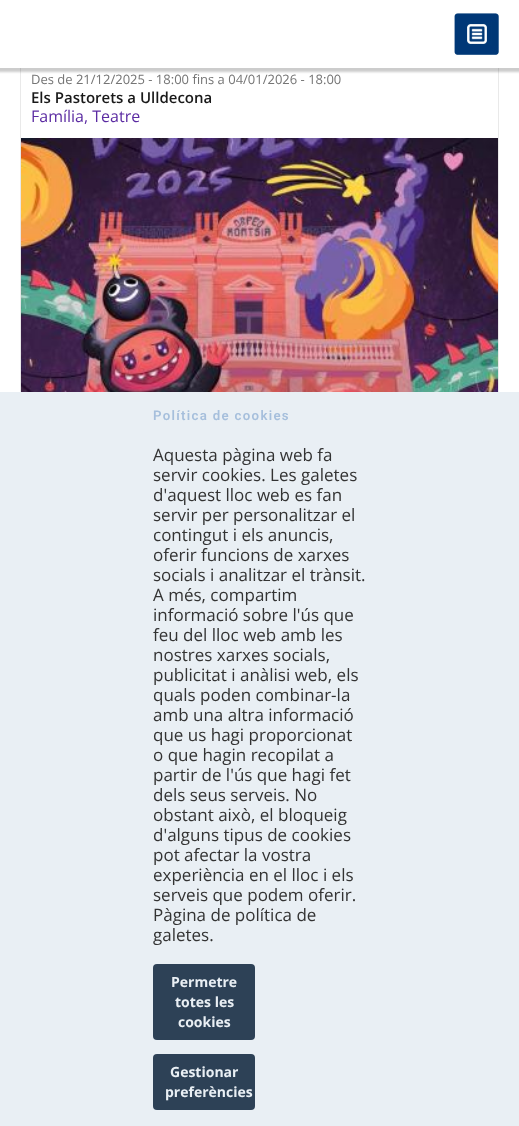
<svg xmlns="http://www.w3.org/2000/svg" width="519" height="1126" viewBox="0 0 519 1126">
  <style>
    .t1 { font: 13px Open Sans; fill: #757575; }
    .t2 { font: 600 15px Open Sans; fill: #191919; }
    .t3 { font: 16px Open Sans; fill: #5b2ba2; }
    .t4 { font: 600 13.25px Roboto; letter-spacing: 1.3px; fill: #a6bfdc; }
    .t5 { font: 17px Open Sans; fill: #333; }
    .t6 { font: bold 14px Open Sans; fill: #e9eff4; }
  </style>
  <rect width="100%" height="100%" fill="#fff"/>
  <rect x="20.5" y="59.5" width="478" height="397" fill="none" stroke="#e9e9e9"/>
  <rect x="-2" y="0" width="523" height="72" fill="#00000033" filter="blur(1px)"/>
  <rect x="0" y="0" width="519" height="68" fill="#fff"/>
  <image x="454" y="13" width="45" height="42" href="images/1.png"/>
  <text x="31" y="84" class="t1">Des de 21/12/2025 - 18:00 fins a 04/01/2026 - 18:00</text>
  <text x="31" y="103" class="t2">Els Pastorets a Ulldecona</text>
  <text x="31" y="122" class="t3">Família, Teatre</text>
  <image x="21" y="138" width="477" height="254" href="images/2.png"/>
  <rect x="0" y="392" width="519" height="734" fill="#e9eff4"/>
  <text x="153" y="420" class="t4">Política de cookies</text>
  <text x="153" y="461" class="t5">Aquesta pàgina web fa</text>
  <text x="153" y="481" class="t5">servir cookies. Les galetes</text>
  <text x="153" y="501" class="t5">d'aquest lloc web es fan</text>
  <text x="153" y="521" class="t5">servir per personalitzar el</text>
  <text x="153" y="541" class="t5">contingut i els anuncis,</text>
  <text x="153" y="561" class="t5">oferir funcions de xarxes</text>
  <text x="153" y="581" class="t5">socials i analitzar el trànsit.</text>
  <text x="153" y="601" class="t5">A més, compartim</text>
  <text x="153" y="621" class="t5">informació sobre l'ús que</text>
  <text x="153" y="641" class="t5">feu del lloc web amb les</text>
  <text x="153" y="661" class="t5">nostres xarxes socials,</text>
  <text x="153" y="681" class="t5">publicitat i anàlisi web, els</text>
  <text x="153" y="701" class="t5">quals poden combinar-la</text>
  <text x="153" y="721" class="t5">amb una altra informació</text>
  <text x="153" y="741" class="t5">que us hagi proporcionat</text>
  <text x="153" y="761" class="t5">o que hagin recopilat a</text>
  <text x="153" y="781" class="t5">partir de l'ús que hagi fet</text>
  <text x="153" y="801" class="t5">dels seus serveis. No</text>
  <text x="153" y="821" class="t5">obstant això, el bloqueig</text>
  <text x="153" y="841" class="t5">d'alguns tipus de cookies</text>
  <text x="153" y="861" class="t5">pot afectar la vostra</text>
  <text x="153" y="881" class="t5">experiència en el lloc i els</text>
  <text x="153" y="901" class="t5">serveis que podem oferir.</text>
  <text x="153" y="921" class="t5">Pàgina de política de</text>
  <text x="153" y="941" class="t5">galetes.</text>
  <rect x="153" y="964" width="102" height="76" rx="4" fill="#2d4156"/>
  <text x="171" y="987" class="t6">Permetre</text>
  <text x="175" y="1007" class="t6">totes les</text>
  <text x="178" y="1027" class="t6">cookies</text>
  <rect x="153" y="1054" width="102" height="56" rx="4" fill="#2d4156"/>
  <text x="170" y="1077" class="t6">Gestionar</text>
  <text x="165" y="1097" class="t6">preferències</text>
</svg>
